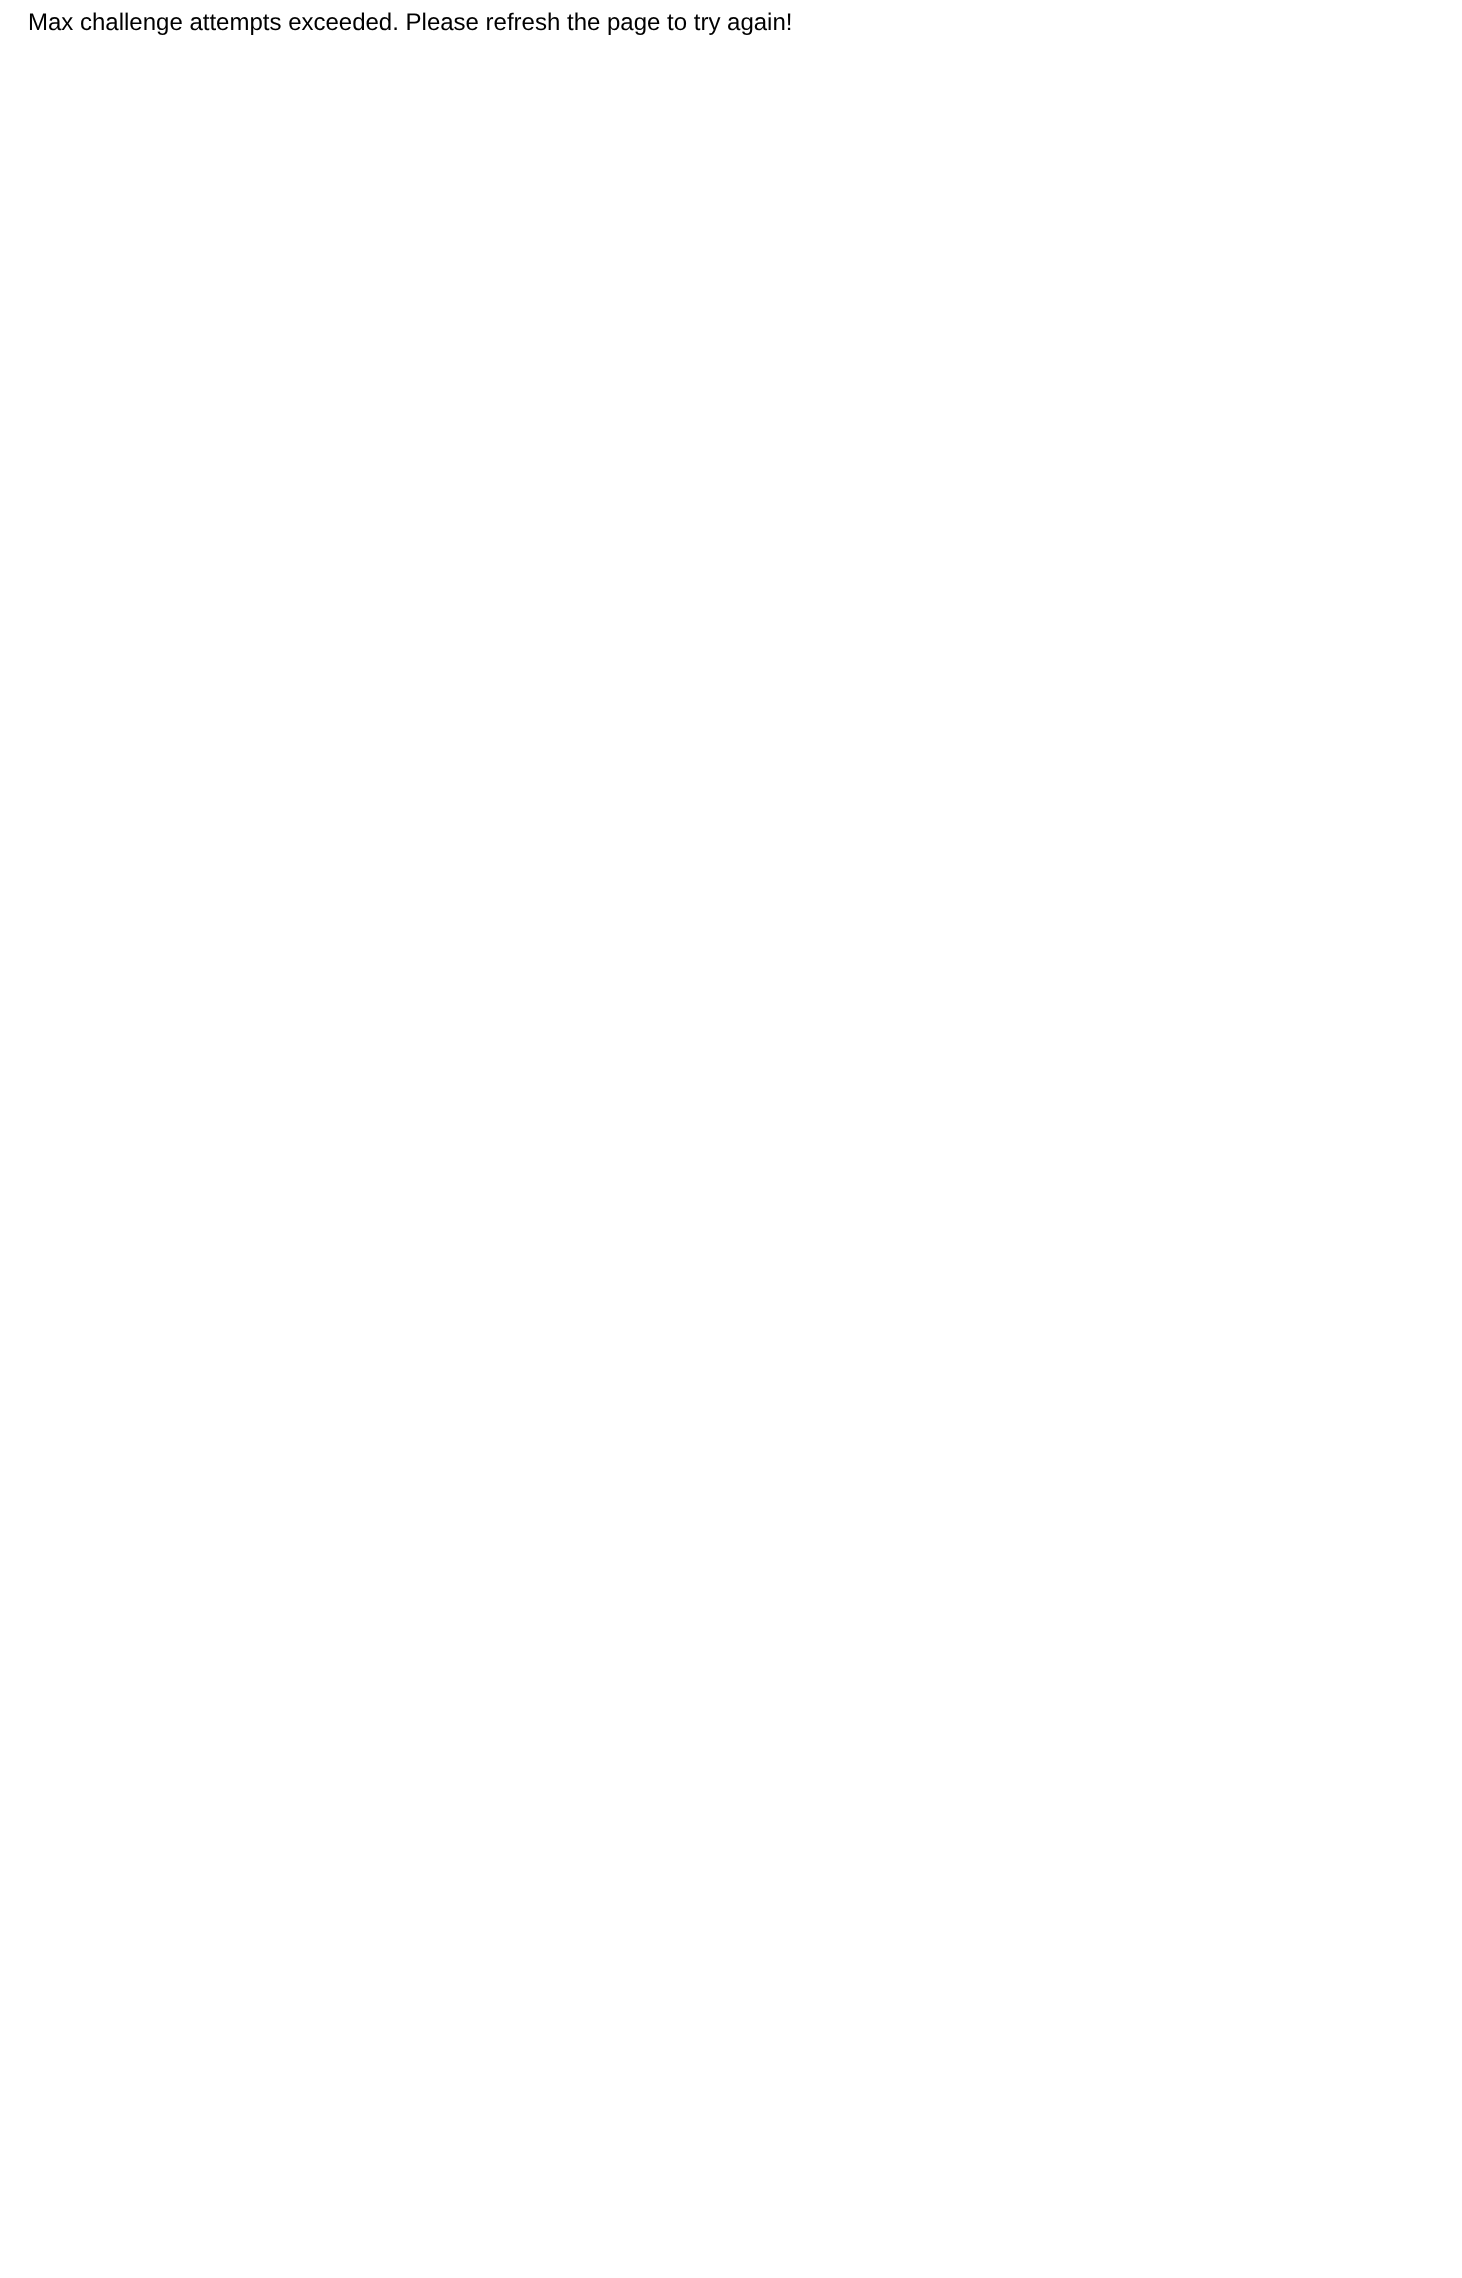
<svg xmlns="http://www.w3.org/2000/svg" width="1462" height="2278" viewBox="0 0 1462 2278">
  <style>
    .t1 { font: 24px Liberation Sans; fill: #000; }
  </style>
  <rect width="100%" height="100%" fill="#fff"/>
  <text x="28" y="30" class="t1">Max challenge attempts exceeded. Please refresh the page to try again!</text>
</svg>
